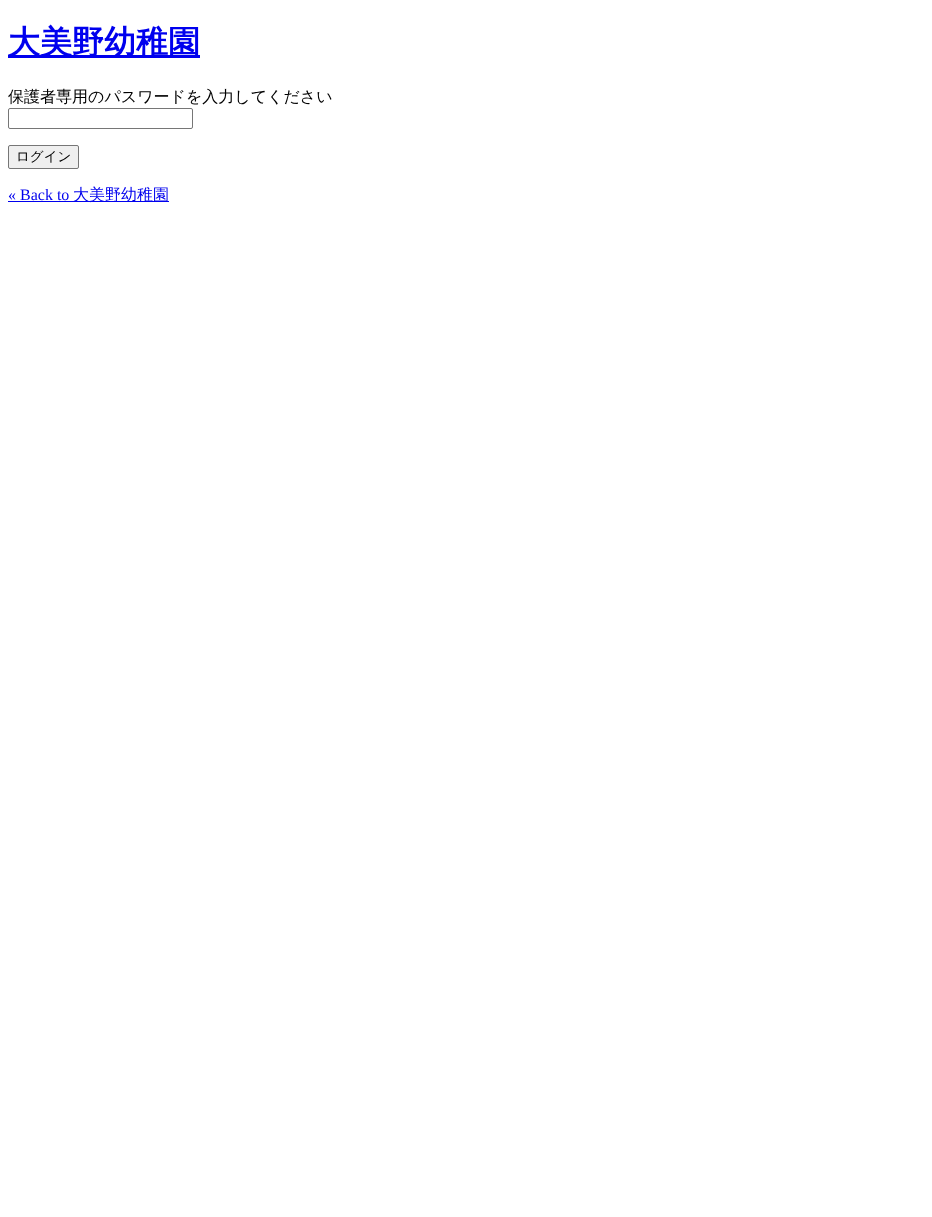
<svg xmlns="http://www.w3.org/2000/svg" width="932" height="1217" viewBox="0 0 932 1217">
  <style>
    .t1 { font: bold 32px WenQuanYi Zen Hei; fill: #00e; }
    .t2 { font: 500 16px WenQuanYi Zen Hei; fill: #000; }
    .t3 { font: 500 13.5px WenQuanYi Zen Hei; fill: #000; }
    .t4 { font: 16px Liberation Serif; fill: #00e; }
    .t5 { font: 500 16px WenQuanYi Zen Hei; fill: #00e; }
  </style>
  <rect width="100%" height="100%" fill="#fff"/>
  <rect x="8" y="55" width="192" height="3" fill="#00e"/>
  <text x="8" y="53" class="t1">大美野幼稚園</text>
  <text x="8" y="102" class="t2">保護者専用のパスワードを入力してください</text>
  <rect x="8.5" y="108.5" width="184" height="20" rx="1.5" fill="none" stroke="#767676"/>
  <rect x="8.5" y="145.5" width="70" height="23" rx="1.5" fill="#efefef" stroke="#767676"/>
  <text x="16" y="161" class="t3">ログイン</text>
  <text x="8" y="200" class="t4">« Back to</text>
  <rect x="8" y="201" width="161" height="1" fill="#00e"/>
  <text x="73" y="200" class="t5">大美野幼稚園</text>
</svg>
